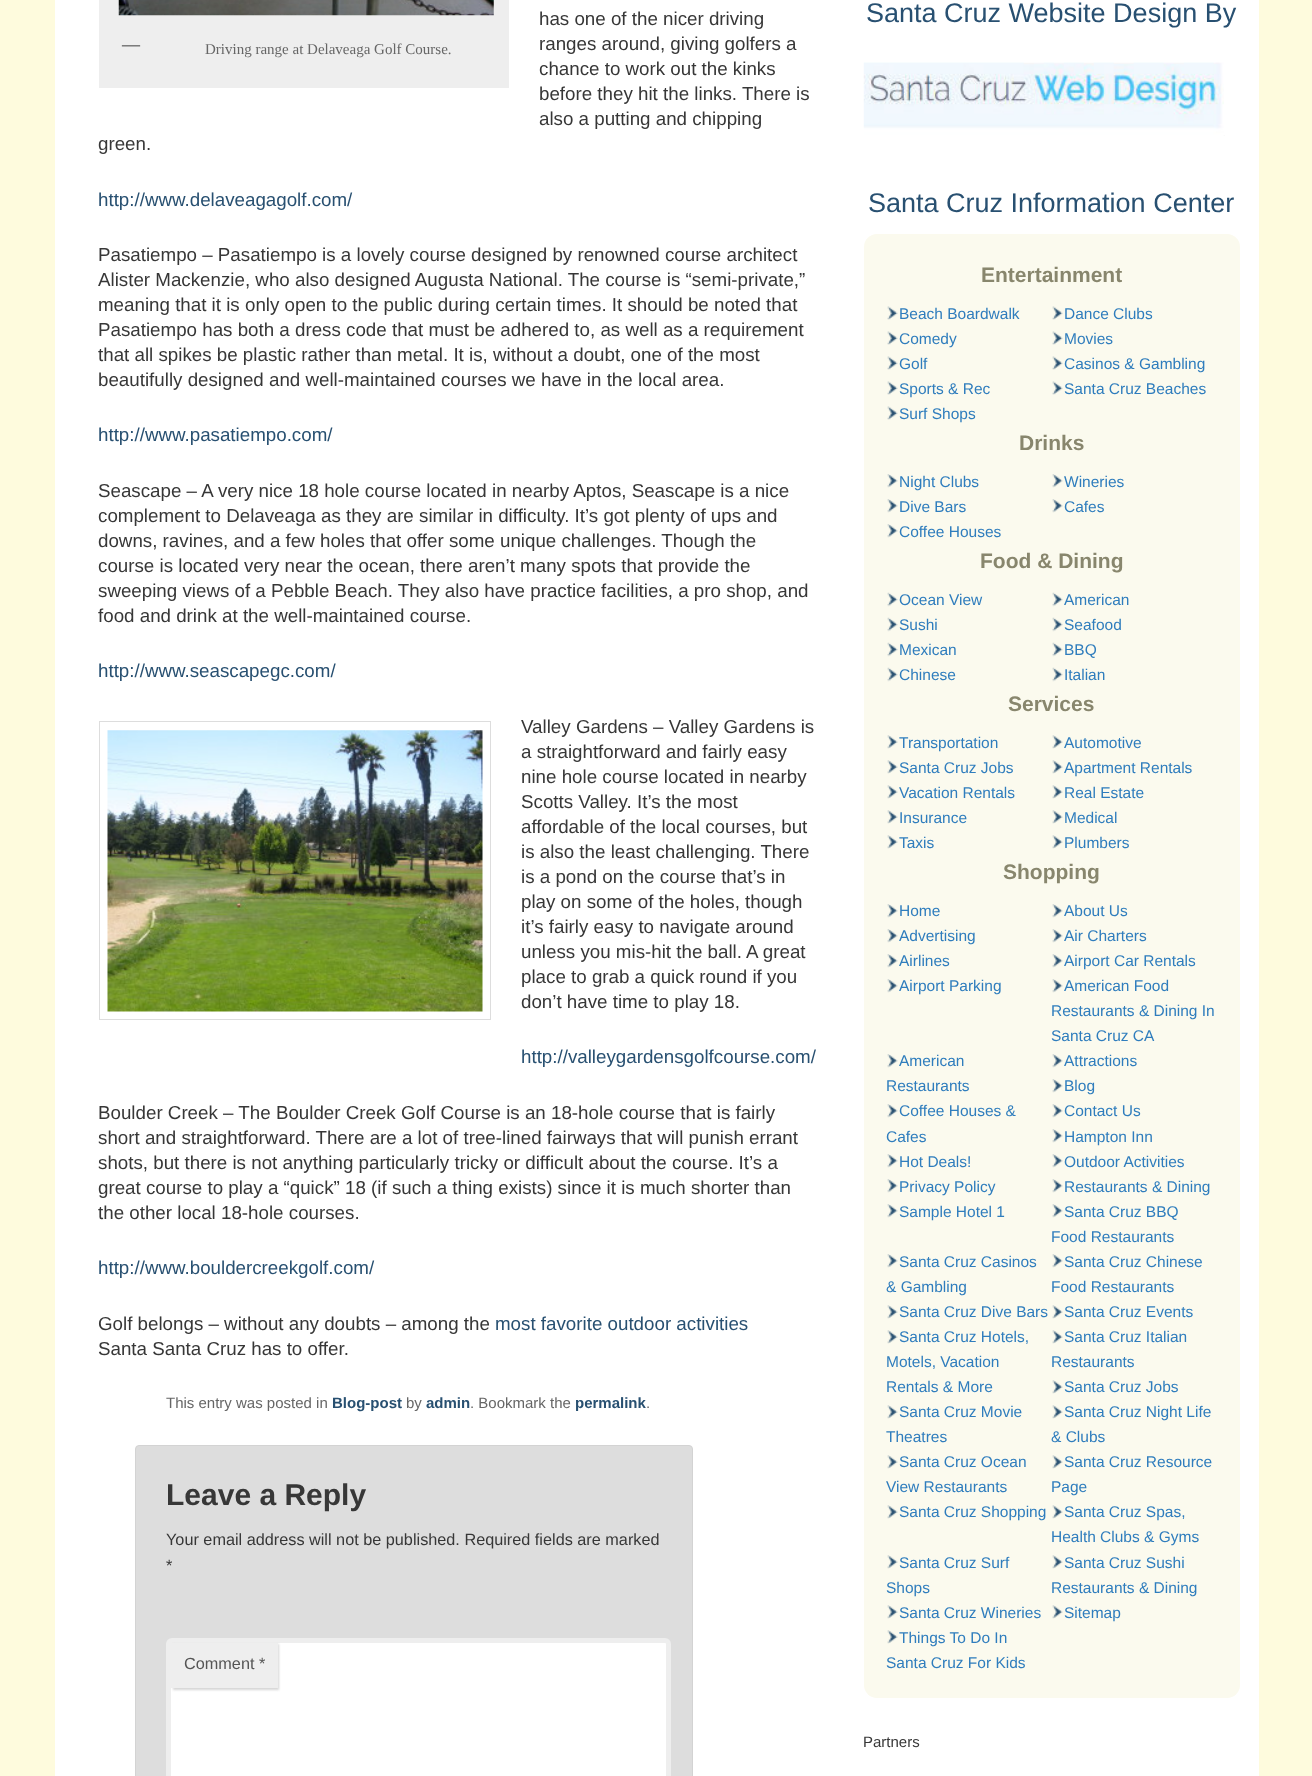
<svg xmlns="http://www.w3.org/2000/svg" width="1312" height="1776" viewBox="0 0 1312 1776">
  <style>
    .t1 { font: 18.75px Liberation Sans; fill: #373737; }
    .t2 { font: bold 18px Liberation Serif; fill: #666; }
    .t3 { font: 15px Liberation Serif; fill: #666; }
    .t4 { font: 18.75px Liberation Sans; fill: #285071; }
    .t5 { font: 15px Liberation Sans; fill: #666; }
    .t6 { font: bold 15px Liberation Sans; fill: #285071; }
    .t7 { font: bold 30px Liberation Sans; fill: #373737; }
    .t8 { font: 16.25px Liberation Sans; fill: #373737; }
    .t9 { font: 16.25px Liberation Sans; fill: #555; }
    .t10 { font: 27px Liberation Sans; fill: #285071; }
    .t11 { font: bold 21px Liberation Sans; fill: #88866d; }
    .t12 { font: 15.5px Liberation Sans; fill: #2f7dbd; }
    .t13 { font: 15px Liberation Sans; fill: #373737; }
  </style>
  <rect width="100%" height="100%" fill="#fefbdd"/>
  <rect x="55" y="0" width="1204" height="1776" fill="#fff"/>
  <text x="539" y="25" class="t1">has one of the nicer driving</text>
  <text x="539" y="50" class="t1">ranges around, giving golfers a</text>
  <text x="539" y="75" class="t1">chance to work out the kinks</text>
  <text x="539" y="100" class="t1">before they hit the links. There is</text>
  <text x="539" y="125" class="t1">also a putting and chipping</text>
  <text x="98" y="150" class="t1">green.</text>
  <rect x="99" y="0" width="410" height="88" fill="#eee"/>
  <image x="118" y="0" width="376" height="16" href="images/1.png"/>
  <text x="122" y="50" class="t2">—</text>
  <text x="205" y="54" class="t3">Driving range at Delaveaga Golf Course.</text>
  <text x="98" y="206" class="t4">http://www.delaveagagolf.com/</text>
  <text x="98" y="261" class="t1">Pasatiempo – Pasatiempo is a lovely course designed by renowned course architect</text>
  <text x="98" y="286" class="t1">Alister Mackenzie, who also designed Augusta National. The course is “semi-private,”</text>
  <text x="98" y="311" class="t1">meaning that it is only open to the public during certain times. It should be noted that</text>
  <text x="98" y="336" class="t1">Pasatiempo has both a dress code that must be adhered to, as well as a requirement</text>
  <text x="98" y="361" class="t1">that all spikes be plastic rather than metal. It is, without a doubt, one of the most</text>
  <text x="98" y="386" class="t1">beautifully designed and well-maintained courses we have in the local area.</text>
  <text x="98" y="441" class="t4">http://www.pasatiempo.com/</text>
  <text x="98" y="497" class="t1">Seascape – A very nice 18 hole course located in nearby Aptos, Seascape is a nice</text>
  <text x="98" y="522" class="t1">complement to Delaveaga as they are similar in difficulty. It’s got plenty of ups and</text>
  <text x="98" y="547" class="t1">downs, ravines, and a few holes that offer some unique challenges. Though the</text>
  <text x="98" y="572" class="t1">course is located very near the ocean, there aren’t many spots that provide the</text>
  <text x="98" y="597" class="t1">sweeping views of a Pebble Beach. They also have practice facilities, a pro shop, and</text>
  <text x="98" y="622" class="t1">food and drink at the well-maintained course.</text>
  <text x="98" y="677" class="t4">http://www.seascapegc.com/</text>
  <rect x="99.5" y="721.5" width="391" height="298" fill="none" stroke="#ddd"/>
  <image x="107" y="730" width="376" height="282" href="images/2.png"/>
  <text x="521" y="733" class="t1">Valley Gardens – Valley Gardens is</text>
  <text x="521" y="758" class="t1">a straightforward and fairly easy</text>
  <text x="521" y="783" class="t1">nine hole course located in nearby</text>
  <text x="521" y="808" class="t1">Scotts Valley. It’s the most</text>
  <text x="521" y="833" class="t1">affordable of the local courses, but</text>
  <text x="521" y="858" class="t1">is also the least challenging. There</text>
  <text x="521" y="883" class="t1">is a pond on the course that’s in</text>
  <text x="521" y="908" class="t1">play on some of the holes, though</text>
  <text x="521" y="933" class="t1">it’s fairly easy to navigate around</text>
  <text x="521" y="958" class="t1">unless you mis-hit the ball. A great</text>
  <text x="521" y="983" class="t1">place to grab a quick round if you</text>
  <text x="521" y="1008" class="t1">don’t have time to play 18.</text>
  <text x="521" y="1063" class="t4">http://valleygardensgolfcourse.com/</text>
  <text x="98" y="1119" class="t1">Boulder Creek – The Boulder Creek Golf Course is an 18-hole course that is fairly</text>
  <text x="98" y="1144" class="t1">short and straightforward. There are a lot of tree-lined fairways that will punish errant</text>
  <text x="98" y="1169" class="t1">shots, but there is not anything particularly tricky or difficult about the course. It’s a</text>
  <text x="98" y="1194" class="t1">great course to play a “quick” 18 (if such a thing exists) since it is much shorter than</text>
  <text x="98" y="1219" class="t1">the other local 18-hole courses.</text>
  <text x="98" y="1274" class="t4">http://www.bouldercreekgolf.com/</text>
  <text x="98" y="1330" class="t1">Golf belongs – without any doubts – among the</text>
  <text x="495" y="1330" class="t4">most favorite outdoor activities</text>
  <text x="98" y="1355" class="t1">Santa Santa Cruz has to offer.</text>
  <text x="166" y="1408" class="t5">This entry was posted in</text>
  <text x="332" y="1408" class="t6">Blog-post</text>
  <text x="406" y="1408" class="t5">by</text>
  <text x="426" y="1408" class="t6">admin</text>
  <text x="470" y="1408" class="t5">. Bookmark the</text>
  <text x="575" y="1408" class="t6">permalink</text>
  <text x="646" y="1408" class="t5">.</text>
  <rect x="135.5" y="1445.5" width="557" height="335" rx="3.5" fill="#ddd" stroke="#d3d3d3"/>
  <text x="166" y="1505" class="t7">Leave a Reply</text>
  <text x="166" y="1545" class="t8">Your email address will not be published. Required fields are marked</text>
  <text x="166" y="1571" class="t8">*</text>
  <rect x="168.5" y="1640.5" width="500" height="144" rx="3.5" fill="#fff" stroke="#eee" stroke-width="5"/>
  <rect x="173" y="1644" width="106" height="46" fill="#cccccccc" filter="blur(1px)"/>
  <rect x="171" y="1643" width="107" height="45" fill="#eee"/>
  <text x="184" y="1669" class="t9">Comment *</text>
  <text x="866" y="22" class="t10">Santa Cruz Website Design By</text>
  <image x="863" y="62" width="362" height="74" href="images/3.png"/>
  <text x="868" y="212" class="t10">Santa Cruz Information Center</text>
  <rect x="864" y="234" width="376" height="1464" rx="13" fill="#fbfaee"/>
  <text x="981" y="282" class="t11">Entertainment</text>
  <image x="887" y="306" width="11" height="14" href="images/4.png"/>
  <text x="899" y="319" class="t12">Beach Boardwalk</text>
  <image x="1052" y="306" width="11" height="14" href="images/4.png"/>
  <text x="1064" y="319" class="t12">Dance Clubs</text>
  <image x="887" y="331" width="11" height="14" href="images/4.png"/>
  <text x="899" y="344" class="t12">Comedy</text>
  <image x="1052" y="331" width="11" height="14" href="images/4.png"/>
  <text x="1064" y="344" class="t12">Movies</text>
  <image x="887" y="356" width="11" height="14" href="images/4.png"/>
  <text x="899" y="369" class="t12">Golf</text>
  <image x="1052" y="356" width="11" height="14" href="images/4.png"/>
  <text x="1064" y="369" class="t12">Casinos &amp; Gambling</text>
  <image x="887" y="381" width="11" height="14" href="images/4.png"/>
  <text x="899" y="394" class="t12">Sports &amp; Rec</text>
  <image x="1052" y="381" width="11" height="14" href="images/4.png"/>
  <text x="1064" y="394" class="t12">Santa Cruz Beaches</text>
  <image x="887" y="406" width="11" height="14" href="images/4.png"/>
  <text x="899" y="419" class="t12">Surf Shops</text>
  <text x="1019" y="450" class="t11">Drinks</text>
  <image x="887" y="474" width="11" height="14" href="images/5.png"/>
  <text x="899" y="487" class="t12">Night Clubs</text>
  <image x="1052" y="474" width="11" height="14" href="images/5.png"/>
  <text x="1064" y="487" class="t12">Wineries</text>
  <image x="887" y="499" width="11" height="14" href="images/5.png"/>
  <text x="899" y="512" class="t12">Dive Bars</text>
  <image x="1052" y="499" width="11" height="14" href="images/5.png"/>
  <text x="1064" y="512" class="t12">Cafes</text>
  <image x="887" y="524" width="11" height="14" href="images/5.png"/>
  <text x="899" y="537" class="t12">Coffee Houses</text>
  <text x="980" y="568" class="t11">Food &amp; Dining</text>
  <image x="887" y="592" width="11" height="15" href="images/6.png"/>
  <text x="899" y="605" class="t12">Ocean View</text>
  <image x="1052" y="592" width="11" height="15" href="images/6.png"/>
  <text x="1064" y="605" class="t12">American</text>
  <image x="887" y="617" width="11" height="15" href="images/7.png"/>
  <text x="899" y="630" class="t12">Sushi</text>
  <image x="1052" y="617" width="11" height="15" href="images/7.png"/>
  <text x="1064" y="630" class="t12">Seafood</text>
  <image x="887" y="642" width="11" height="15" href="images/7.png"/>
  <text x="899" y="655" class="t12">Mexican</text>
  <image x="1052" y="642" width="11" height="15" href="images/7.png"/>
  <text x="1064" y="655" class="t12">BBQ</text>
  <image x="887" y="667" width="11" height="15" href="images/8.png"/>
  <text x="899" y="680" class="t12">Chinese</text>
  <image x="1052" y="667" width="11" height="15" href="images/8.png"/>
  <text x="1064" y="680" class="t12">Italian</text>
  <text x="1008" y="711" class="t11">Services</text>
  <image x="887" y="735" width="11" height="14" href="images/9.png"/>
  <text x="899" y="748" class="t12">Transportation</text>
  <image x="1052" y="735" width="11" height="14" href="images/9.png"/>
  <text x="1064" y="748" class="t12">Automotive</text>
  <image x="887" y="760" width="11" height="14" href="images/9.png"/>
  <text x="899" y="773" class="t12">Santa Cruz Jobs</text>
  <image x="1052" y="760" width="11" height="14" href="images/9.png"/>
  <text x="1064" y="773" class="t12">Apartment Rentals</text>
  <image x="887" y="785" width="11" height="14" href="images/9.png"/>
  <text x="899" y="798" class="t12">Vacation Rentals</text>
  <image x="1052" y="785" width="11" height="14" href="images/9.png"/>
  <text x="1064" y="798" class="t12">Real Estate</text>
  <image x="887" y="810" width="11" height="14" href="images/9.png"/>
  <text x="899" y="823" class="t12">Insurance</text>
  <image x="1052" y="810" width="11" height="14" href="images/9.png"/>
  <text x="1064" y="823" class="t12">Medical</text>
  <image x="887" y="835" width="11" height="14" href="images/9.png"/>
  <text x="899" y="848" class="t12">Taxis</text>
  <image x="1052" y="835" width="11" height="14" href="images/9.png"/>
  <text x="1064" y="848" class="t12">Plumbers</text>
  <text x="1003" y="879" class="t11">Shopping</text>
  <image x="887" y="904" width="11" height="14" href="images/5.png"/>
  <text x="899" y="916" class="t12">Home</text>
  <image x="1052" y="904" width="11" height="14" href="images/5.png"/>
  <text x="1064" y="916" class="t12">About Us</text>
  <image x="887" y="929" width="11" height="14" href="images/5.png"/>
  <text x="899" y="941" class="t12">Advertising</text>
  <image x="1052" y="929" width="11" height="14" href="images/5.png"/>
  <text x="1064" y="941" class="t12">Air Charters</text>
  <image x="887" y="954" width="11" height="14" href="images/5.png"/>
  <text x="899" y="966" class="t12">Airlines</text>
  <image x="1052" y="954" width="11" height="14" href="images/5.png"/>
  <text x="1064" y="966" class="t12">Airport Car Rentals</text>
  <image x="887" y="979" width="11" height="14" href="images/5.png"/>
  <text x="899" y="991" class="t12">Airport Parking</text>
  <image x="1052" y="979" width="11" height="14" href="images/5.png"/>
  <text x="1064" y="991" class="t12">American Food</text>
  <text x="1051" y="1016" class="t12">Restaurants &amp; Dining In</text>
  <text x="1051" y="1041" class="t12">Santa Cruz CA</text>
  <image x="887" y="1054" width="11" height="14" href="images/5.png"/>
  <text x="899" y="1066" class="t12">American</text>
  <text x="886" y="1091" class="t12">Restaurants</text>
  <image x="1052" y="1054" width="11" height="14" href="images/5.png"/>
  <text x="1064" y="1066" class="t12">Attractions</text>
  <image x="1052" y="1079" width="11" height="14" href="images/5.png"/>
  <text x="1064" y="1091" class="t12">Blog</text>
  <image x="887" y="1104" width="11" height="14" href="images/10.png"/>
  <text x="899" y="1116" class="t12">Coffee Houses &amp;</text>
  <text x="886" y="1142" class="t12">Cafes</text>
  <image x="1052" y="1104" width="11" height="14" href="images/10.png"/>
  <text x="1064" y="1116" class="t12">Contact Us</text>
  <image x="1052" y="1129" width="11" height="14" href="images/5.png"/>
  <text x="1064" y="1142" class="t12">Hampton Inn</text>
  <image x="887" y="1154" width="11" height="14" href="images/5.png"/>
  <text x="899" y="1167" class="t12">Hot Deals!</text>
  <image x="1052" y="1154" width="11" height="14" href="images/5.png"/>
  <text x="1064" y="1167" class="t12">Outdoor Activities</text>
  <image x="887" y="1179" width="11" height="14" href="images/5.png"/>
  <text x="899" y="1192" class="t12">Privacy Policy</text>
  <image x="1052" y="1179" width="11" height="14" href="images/5.png"/>
  <text x="1064" y="1192" class="t12">Restaurants &amp; Dining</text>
  <image x="887" y="1204" width="11" height="14" href="images/5.png"/>
  <text x="899" y="1217" class="t12">Sample Hotel 1</text>
  <image x="1052" y="1204" width="11" height="14" href="images/5.png"/>
  <text x="1064" y="1217" class="t12">Santa Cruz BBQ</text>
  <text x="1051" y="1242" class="t12">Food Restaurants</text>
  <image x="887" y="1254" width="11" height="14" href="images/11.png"/>
  <text x="899" y="1267" class="t12">Santa Cruz Casinos</text>
  <text x="886" y="1292" class="t12">&amp; Gambling</text>
  <image x="1052" y="1254" width="11" height="14" href="images/11.png"/>
  <text x="1064" y="1267" class="t12">Santa Cruz Chinese</text>
  <text x="1051" y="1292" class="t12">Food Restaurants</text>
  <image x="887" y="1305" width="11" height="14" href="images/9.png"/>
  <text x="899" y="1317" class="t12">Santa Cruz Dive Bars</text>
  <image x="1052" y="1305" width="11" height="14" href="images/9.png"/>
  <text x="1064" y="1317" class="t12">Santa Cruz Events</text>
  <image x="887" y="1330" width="11" height="14" href="images/9.png"/>
  <text x="899" y="1342" class="t12">Santa Cruz Hotels,</text>
  <text x="886" y="1367" class="t12">Motels, Vacation</text>
  <text x="886" y="1392" class="t12">Rentals &amp; More</text>
  <image x="1052" y="1330" width="11" height="14" href="images/9.png"/>
  <text x="1064" y="1342" class="t12">Santa Cruz Italian</text>
  <text x="1051" y="1367" class="t12">Restaurants</text>
  <image x="1052" y="1380" width="11" height="14" href="images/9.png"/>
  <text x="1064" y="1392" class="t12">Santa Cruz Jobs</text>
  <image x="887" y="1405" width="11" height="14" href="images/9.png"/>
  <text x="899" y="1417" class="t12">Santa Cruz Movie</text>
  <text x="886" y="1442" class="t12">Theatres</text>
  <image x="1052" y="1405" width="11" height="14" href="images/9.png"/>
  <text x="1064" y="1417" class="t12">Santa Cruz Night Life</text>
  <text x="1051" y="1442" class="t12">&amp; Clubs</text>
  <image x="887" y="1455" width="11" height="14" href="images/9.png"/>
  <text x="899" y="1467" class="t12">Santa Cruz Ocean</text>
  <text x="886" y="1492" class="t12">View Restaurants</text>
  <image x="1052" y="1455" width="11" height="14" href="images/9.png"/>
  <text x="1064" y="1467" class="t12">Santa Cruz Resource</text>
  <text x="1051" y="1492" class="t12">Page</text>
  <image x="887" y="1505" width="11" height="14" href="images/9.png"/>
  <text x="899" y="1517" class="t12">Santa Cruz Shopping</text>
  <image x="1052" y="1505" width="11" height="14" href="images/9.png"/>
  <text x="1064" y="1517" class="t12">Santa Cruz Spas,</text>
  <text x="1051" y="1542" class="t12">Health Clubs &amp; Gyms</text>
  <image x="887" y="1555" width="11" height="14" href="images/9.png"/>
  <text x="899" y="1568" class="t12">Santa Cruz Surf</text>
  <text x="886" y="1593" class="t12">Shops</text>
  <image x="1052" y="1555" width="11" height="14" href="images/9.png"/>
  <text x="1064" y="1568" class="t12">Santa Cruz Sushi</text>
  <text x="1051" y="1593" class="t12">Restaurants &amp; Dining</text>
  <image x="887" y="1605" width="11" height="14" href="images/9.png"/>
  <text x="899" y="1618" class="t12">Santa Cruz Wineries</text>
  <image x="1052" y="1605" width="11" height="14" href="images/9.png"/>
  <text x="1064" y="1618" class="t12">Sitemap</text>
  <image x="887" y="1630" width="11" height="14" href="images/9.png"/>
  <text x="899" y="1643" class="t12">Things To Do In</text>
  <text x="886" y="1668" class="t12">Santa Cruz For Kids</text>
  <text x="863" y="1747" class="t13">Partners</text>
</svg>
